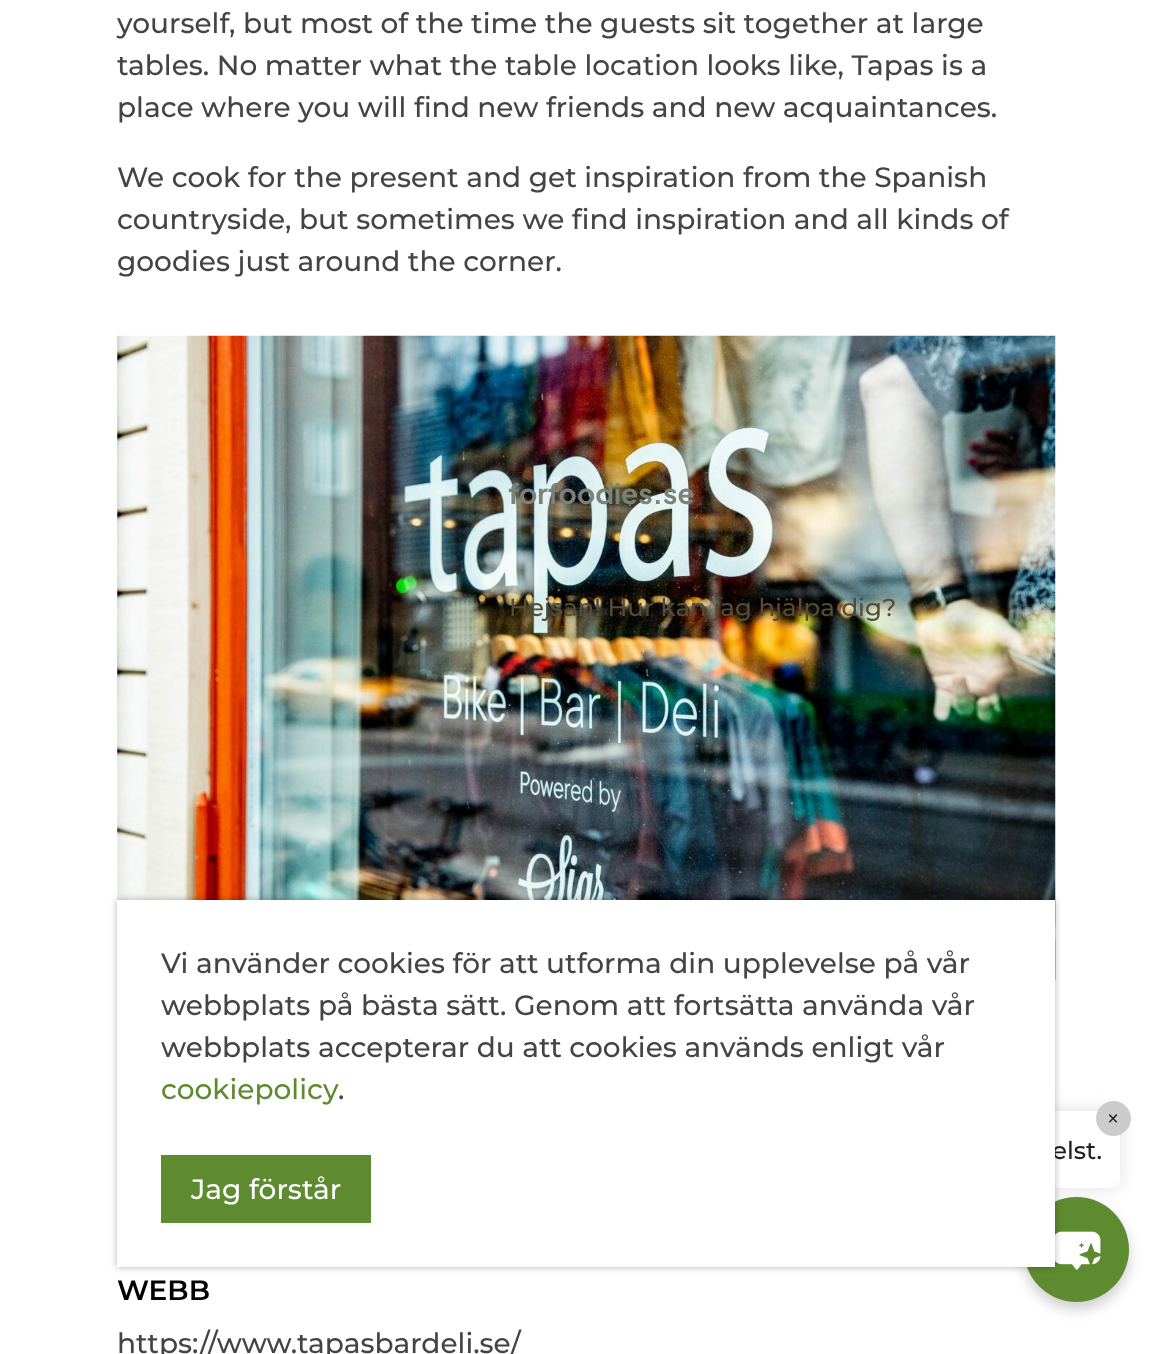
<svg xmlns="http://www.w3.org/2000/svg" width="1171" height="1354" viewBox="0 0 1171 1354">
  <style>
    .t1 { font: 100 28px Montserrat; fill: #444; }
    .t2 { font: 100 28px 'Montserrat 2'; fill: #000; }
    .t3 { font: bold 28px Plus Jakarta Sans; fill: #7d8279; }
    .t4 { font: 100 24.5px Montserrat; fill: #534c39; }
    .t5 { font: 100 24.5px 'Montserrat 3'; fill: #212121; }
    .t6 { font: 100 24.5px Montserrat; fill: #212121; }
    .t7 { font: 100 28px Montserrat; fill: #5e8b2f; }
    .t8 { font: 100 28px Montserrat; fill: #fff; }
  </style>
  <rect width="100%" height="100%" fill="#fff"/>
  <text x="117" y="33" class="t1">yourself, but most of the time the guests sit together at large</text>
  <text x="117" y="75" class="t1">tables. No matter what the table location looks like, Tapas is a</text>
  <text x="117" y="117" class="t1">place where you will find new friends and new acquaintances.</text>
  <text x="117" y="187" class="t1">We cook for the present and get inspiration from the Spanish</text>
  <text x="117" y="229" class="t1">countryside, but sometimes we find inspiration and all kinds of</text>
  <text x="117" y="271" class="t1">goodies just around the corner.</text>
  <image x="117" y="335" width="939" height="645" href="images/1.png"/>
  <text x="117" y="1300" class="t2">WEBB</text>
  <text x="117" y="1353" class="t1">https://www.tapasbardeli.se/</text>
  <text x="508" y="504" class="t3">forfoodies.se</text>
  <text x="509" y="616" class="t4">Hejsan! Hur kan jag hjälpa dig?</text>
  <rect x="676" y="1111" width="444" height="77" rx="9" fill="#9696964d" filter="blur(9px)"/>
  <rect x="676" y="1111" width="444" height="77" rx="9" fill="#fff"/>
  <circle cx="1113.5" cy="1118.5" r="17.5" fill="#ccc"/>
  <text x="1106" y="1127" class="t5">×</text>
  <text x="1052" y="1159" class="t6">elst.</text>
  <rect x="1024" y="1204" width="105" height="105" rx="52.5" fill="#00000033" filter="blur(7px)"/>
  <circle cx="1076.5" cy="1249.5" r="52.5" fill="#5e8b2f"/>
  <image x="1055" y="1231" width="46" height="39" href="images/2.png"/>
  <rect x="117" y="900" width="938" height="367" fill="#0000004d" filter="blur(3.5px)"/>
  <rect x="117" y="900" width="938" height="367" fill="#fff"/>
  <text x="161" y="973" class="t1">Vi använder cookies för att utforma din upplevelse på vår</text>
  <text x="161" y="1015" class="t1">webbplats på bästa sätt. Genom att fortsätta använda vår</text>
  <text x="161" y="1057" class="t1">webbplats accepterar du att cookies används enligt vår</text>
  <text x="161" y="1099" class="t7">cookiepolicy</text>
  <text x="338" y="1099" class="t1">.</text>
  <rect x="161" y="1155" width="210" height="68" fill="#5e8b2f"/>
  <text x="191" y="1199" class="t8">Jag förstår</text>
</svg>
